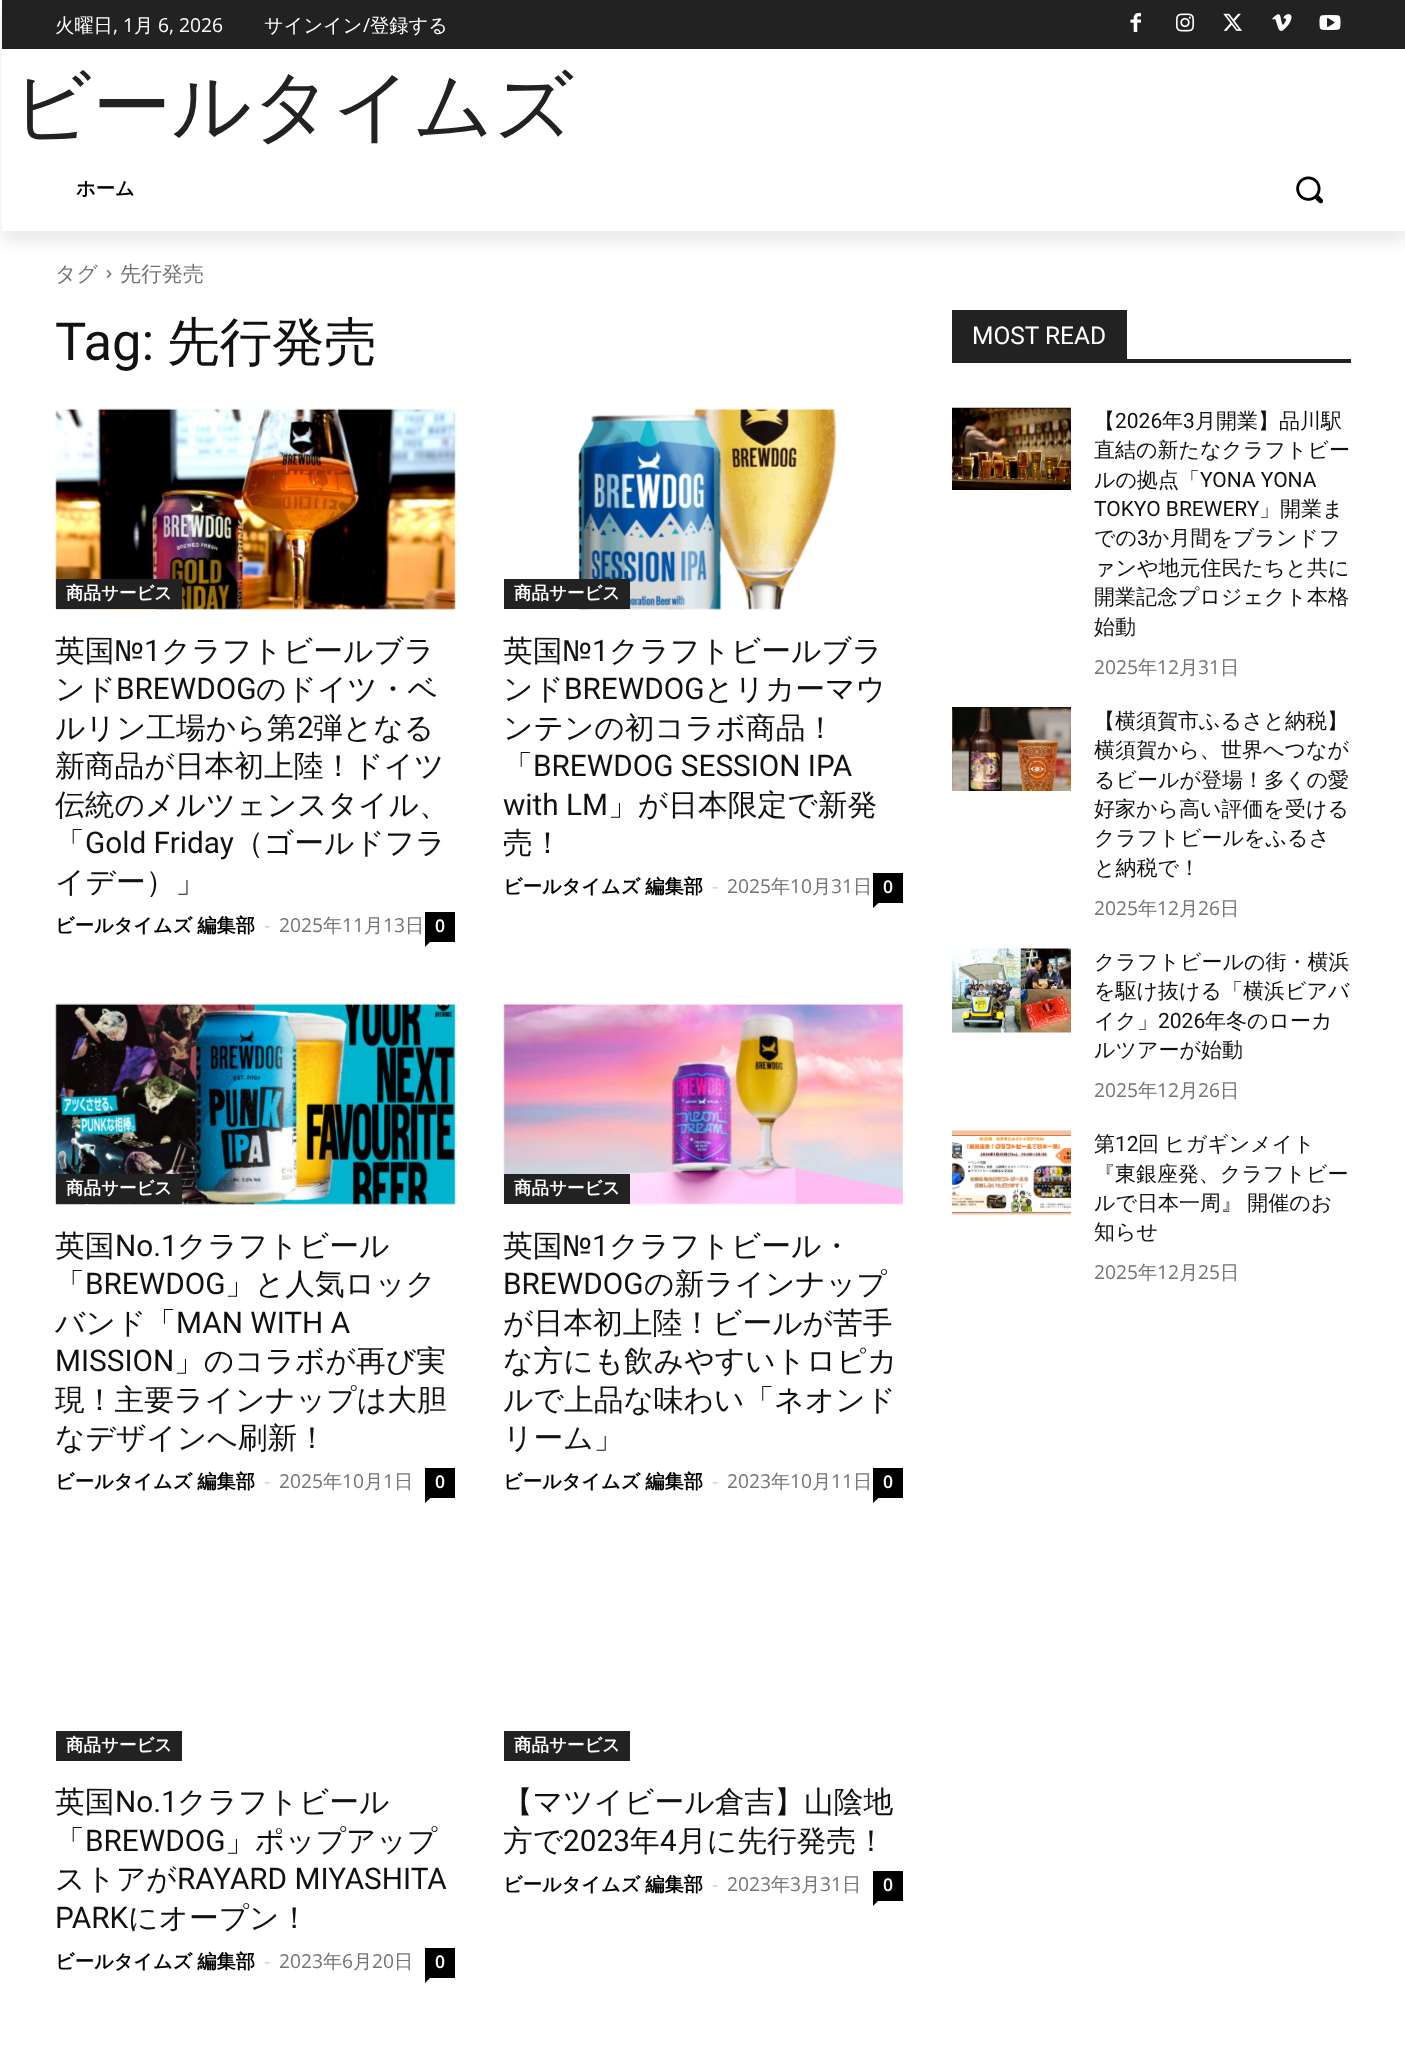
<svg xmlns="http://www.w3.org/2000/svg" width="1405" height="2055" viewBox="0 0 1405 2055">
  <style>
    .t1 { font: 500 19.25px WenQuanYi Zen Hei; fill: #fff; }
    .t2 { font: 19.25px Open Sans; fill: #fff; }
    .t3 { font: 500 78.75px WenQuanYi Zen Hei; fill: #222; }
    .t4 { font: bold 19.25px WenQuanYi Zen Hei; fill: #000; }
    .t5 { font: 500 21px WenQuanYi Zen Hei; fill: #747474; }
    .t6 { font: 52.5px Roboto; fill: #111; }
    .t7 { font: 500 52.5px WenQuanYi Zen Hei; fill: #111; }
    .t8 { font: bold 17.5px WenQuanYi Zen Hei; fill: #fff; }
    .t9 { font: 500 29.75px WenQuanYi Zen Hei; fill: #111; }
    .t10 { font: 29.75px Roboto; fill: #111; }
    .t11 { font: 19.25px Open Sans; fill: #ccc; }
    .t12 { font: 19.25px Open Sans; fill: #747474; }
    .t13 { font: 500 19.25px WenQuanYi Zen Hei; fill: #747474; }
    .t14 { font: 600 17.5px Open Sans; fill: #fff; }
    .t15 { font: 24.5px Roboto; fill: #fff; }
    .t16 { font: 500 21px WenQuanYi Zen Hei; fill: #111; }
    .t17 { font: 21px Roboto; fill: #111; }
  </style>
  <defs>
    <clipPath id="clip1"><path d="M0 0H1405V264H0ZM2 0H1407V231H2Z" clip-rule="evenodd"/></clipPath>
  </defs>
  <rect width="100%" height="100%" fill="#fff"/>
  <rect x="2" y="0" width="1403" height="49" fill="#222"/>
  <image x="1130" y="13" width="11" height="19" href="images/1.png"/>
  <image x="1176" y="13" width="18" height="19" href="images/2.png"/>
  <image x="1223" y="13" width="19" height="18" href="images/3.png"/>
  <image x="1272" y="14" width="20" height="17" href="images/4.png"/>
  <image x="1319" y="15" width="22" height="15" href="images/5.png"/>
  <g clip-path="url(#clip1)">
    <rect x="2" y="11" width="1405" height="231" fill="#00000014" filter="blur(7px)"/>
  </g>
  <text x="55" y="32" class="t1">火曜日</text>
  <text x="113" y="32" class="t2">, 1</text>
  <text x="134" y="32" class="t1">月</text>
  <text x="158" y="32" class="t2">6, 2026</text>
  <text x="264" y="32" class="t1">サインイン</text>
  <text x="363" y="32" class="t2">/</text>
  <text x="370" y="32" class="t1">登録する</text>
  <text x="12" y="133" class="t3">ビールタイムズ</text>
  <text x="76" y="195" class="t4">ホーム</text>
  <image x="1296" y="176" width="27" height="28" href="images/6.png"/>
  <text x="55" y="281" class="t5">タグ</text>
  <image x="106" y="270" width="6" height="8" href="images/7.png"/>
  <text x="120" y="281" class="t5">先行発売</text>
  <text x="55" y="360" class="t6">Tag:</text>
  <text x="167" y="360" class="t7">先行発売</text>
  <image x="55" y="408" width="401" height="202" href="images/8.png"/>
  <rect x="56" y="579" width="126" height="30" fill="#222"/>
  <text x="66" y="599" class="t8">商品サービス</text>
  <text x="55" y="661" class="t9">英国№</text>
  <text x="144" y="661" class="t10">1</text>
  <text x="161" y="661" class="t9">クラフトビールブラ</text>
  <text x="55" y="699" class="t9">ンド</text>
  <text x="116" y="699" class="t10">BREWDOG</text>
  <text x="256" y="699" class="t9">のドイツ・ベ</text>
  <text x="55" y="738" class="t9">ルリン工場から第</text>
  <text x="297" y="738" class="t10">2</text>
  <text x="313" y="738" class="t9">弾となる</text>
  <text x="55" y="776" class="t9">新商品が日本初上陸！ドイツ</text>
  <text x="55" y="815" class="t9">伝統のメルツェンスタイル、</text>
  <text x="55" y="853" class="t9">「</text>
  <text x="85" y="853" class="t10">Gold Friday</text>
  <text x="234" y="853" class="t9">（ゴールドフラ</text>
  <text x="55" y="892" class="t9">イデー）」</text>
  <text x="55" y="932" word-spacing="-1" class="t4">ビールタイムズ 編集部</text>
  <text x="264" y="932" class="t11">-</text>
  <text x="279" y="932" class="t12">2025</text>
  <text x="323" y="932" class="t13">年</text>
  <text x="342" y="932" class="t12">11</text>
  <text x="364" y="932" class="t13">月</text>
  <text x="383" y="932" class="t12">13</text>
  <text x="405" y="932" class="t13">日</text>
  <rect x="425" y="912" width="30" height="30" fill="#000"/>
  <text x="435" y="932" class="t14">0</text>
  <path d="M425 941.5H430.5L425 947Z" fill="#000"/>
  <image x="578" y="408" width="259" height="202" href="images/9.png"/>
  <rect x="504" y="579" width="126" height="30" fill="#222"/>
  <text x="514" y="599" class="t8">商品サービス</text>
  <text x="503" y="661" class="t9">英国№</text>
  <text x="592" y="661" class="t10">1</text>
  <text x="609" y="661" class="t9">クラフトビールブラ</text>
  <text x="503" y="699" class="t9">ンド</text>
  <text x="564" y="699" class="t10">BREWDOG</text>
  <text x="704" y="699" class="t9">とリカーマウ</text>
  <text x="503" y="738" class="t9">ンテンの初コラボ商品！</text>
  <text x="503" y="776" class="t9">「</text>
  <text x="533" y="776" class="t10">BREWDOG SESSION IPA</text>
  <text x="503" y="815" class="t10">with LM</text>
  <text x="608" y="815" class="t9">」が日本限定で新発</text>
  <text x="503" y="853" class="t9">売！</text>
  <text x="503" y="893" word-spacing="-1" class="t4">ビールタイムズ 編集部</text>
  <text x="712" y="893" class="t11">-</text>
  <text x="727" y="893" class="t12">2025</text>
  <text x="771" y="893" class="t13">年</text>
  <text x="790" y="893" class="t12">10</text>
  <text x="812" y="893" class="t13">月</text>
  <text x="831" y="893" class="t12">31</text>
  <text x="853" y="893" class="t13">日</text>
  <rect x="873" y="873" width="30" height="30" fill="#000"/>
  <text x="883" y="893" class="t14">0</text>
  <path d="M873 903H878.5L873 908Z" fill="#000"/>
  <image x="55" y="1003" width="401" height="202" href="images/10.png"/>
  <rect x="56" y="1174" width="126" height="30" fill="#222"/>
  <text x="66" y="1194" class="t8">商品サービス</text>
  <text x="55" y="1256" class="t9">英国</text>
  <text x="115" y="1256" class="t10">No.1</text>
  <text x="177" y="1256" class="t9">クラフトビール</text>
  <text x="55" y="1294" class="t9">「</text>
  <text x="85" y="1294" class="t10">BREWDOG</text>
  <text x="225" y="1294" class="t9">」と人気ロック</text>
  <text x="55" y="1333" class="t9">バンド「</text>
  <text x="176" y="1333" class="t10">MAN WITH A</text>
  <text x="55" y="1371" class="t10">MISSION</text>
  <text x="174" y="1371" class="t9">」のコラボが再び実</text>
  <text x="55" y="1410" class="t9">現！主要ラインナップは大胆</text>
  <text x="55" y="1448" class="t9">なデザインへ刷新！</text>
  <text x="55" y="1488" word-spacing="-1" class="t4">ビールタイムズ 編集部</text>
  <text x="264" y="1488" class="t11">-</text>
  <text x="279" y="1488" class="t12">2025</text>
  <text x="323" y="1488" class="t13">年</text>
  <text x="342" y="1488" class="t12">10</text>
  <text x="364" y="1488" class="t13">月</text>
  <text x="383" y="1488" class="t12">1</text>
  <text x="394" y="1488" class="t13">日</text>
  <rect x="425" y="1468" width="30" height="30" fill="#000"/>
  <text x="435" y="1488" class="t14">0</text>
  <path d="M425 1498H430.5L425 1503Z" fill="#000"/>
  <image x="503" y="1003" width="400" height="202" href="images/11.png"/>
  <rect x="504" y="1174" width="126" height="30" fill="#222"/>
  <text x="514" y="1194" class="t8">商品サービス</text>
  <text x="503" y="1256" class="t9">英国№</text>
  <text x="592" y="1256" class="t10">1</text>
  <text x="609" y="1256" class="t9">クラフトビール・</text>
  <text x="503" y="1294" class="t10">BREWDOG</text>
  <text x="644" y="1294" class="t9">の新ラインナップ</text>
  <text x="503" y="1333" class="t9">が日本初上陸！ビールが苦手</text>
  <text x="503" y="1371" class="t9">な方にも飲みやすいトロピカ</text>
  <text x="503" y="1410" class="t9">ルで上品な味わい「ネオンド</text>
  <text x="503" y="1448" class="t9">リーム」</text>
  <text x="503" y="1488" word-spacing="-1" class="t4">ビールタイムズ 編集部</text>
  <text x="712" y="1488" class="t11">-</text>
  <text x="727" y="1488" class="t12">2023</text>
  <text x="771" y="1488" class="t13">年</text>
  <text x="790" y="1488" class="t12">10</text>
  <text x="812" y="1488" class="t13">月</text>
  <text x="831" y="1488" class="t12">11</text>
  <text x="853" y="1488" class="t13">日</text>
  <rect x="873" y="1468" width="30" height="30" fill="#000"/>
  <text x="883" y="1488" class="t14">0</text>
  <path d="M873 1498H878.5L873 1503Z" fill="#000"/>
  <rect x="56" y="1731" width="126" height="30" fill="#222"/>
  <text x="66" y="1751" class="t8">商品サービス</text>
  <text x="55" y="1812" class="t9">英国</text>
  <text x="115" y="1812" class="t10">No.1</text>
  <text x="177" y="1812" class="t9">クラフトビール</text>
  <text x="55" y="1851" class="t9">「</text>
  <text x="85" y="1851" class="t10">BREWDOG</text>
  <text x="225" y="1851" class="t9">」ポップアップ</text>
  <text x="55" y="1889" class="t9">ストアが</text>
  <text x="177" y="1889" class="t10">RAYARD MIYASHITA</text>
  <text x="55" y="1928" class="t10">PARK</text>
  <text x="128" y="1928" class="t9">にオープン！</text>
  <text x="55" y="1968" word-spacing="-1" class="t4">ビールタイムズ 編集部</text>
  <text x="264" y="1968" class="t11">-</text>
  <text x="279" y="1968" class="t12">2023</text>
  <text x="323" y="1968" class="t13">年</text>
  <text x="342" y="1968" class="t12">6</text>
  <text x="353" y="1968" class="t13">月</text>
  <text x="372" y="1968" class="t12">20</text>
  <text x="394" y="1968" class="t13">日</text>
  <rect x="425" y="1948" width="30" height="30" fill="#000"/>
  <text x="435" y="1968" class="t14">0</text>
  <path d="M425 1977.5H430.5L425 1983Z" fill="#000"/>
  <rect x="504" y="1731" width="126" height="30" fill="#222"/>
  <text x="514" y="1751" class="t8">商品サービス</text>
  <text x="503" y="1812" class="t9">【マツイビール倉吉】山陰地</text>
  <text x="503" y="1851" class="t9">方で</text>
  <text x="563" y="1851" class="t10">2023</text>
  <text x="630" y="1851" class="t9">年</text>
  <text x="660" y="1851" class="t10">4</text>
  <text x="677" y="1851" class="t9">月に先行発売！</text>
  <text x="503" y="1891" word-spacing="-1" class="t4">ビールタイムズ 編集部</text>
  <text x="712" y="1891" class="t11">-</text>
  <text x="727" y="1891" class="t12">2023</text>
  <text x="771" y="1891" class="t13">年</text>
  <text x="790" y="1891" class="t12">3</text>
  <text x="801" y="1891" class="t13">月</text>
  <text x="820" y="1891" class="t12">31</text>
  <text x="842" y="1891" class="t13">日</text>
  <rect x="873" y="1871" width="30" height="30" fill="#000"/>
  <text x="883" y="1891" class="t14">0</text>
  <path d="M873 1900.5H878.5L873 1906Z" fill="#000"/>
  <rect x="952" y="359" width="399" height="4" fill="#222"/>
  <rect x="952" y="310" width="175" height="49" fill="#222"/>
  <text x="972" y="344" class="t15">MOST READ</text>
  <image x="952" y="407" width="119" height="83" href="images/12.png"/>
  <text x="1094" y="428" class="t16">【</text>
  <text x="1115" y="428" class="t17">2026</text>
  <text x="1162" y="428" class="t16">年</text>
  <text x="1183" y="428" class="t17">3</text>
  <text x="1195" y="428" class="t16">月開業】品川駅</text>
  <text x="1094" y="457" class="t16">直結の新たなクラフトビー</text>
  <text x="1094" y="487" class="t16">ルの拠点「</text>
  <text x="1200" y="487" class="t17">YONA YONA</text>
  <text x="1094" y="516" class="t17">TOKYO BREWERY</text>
  <text x="1259" y="516" class="t16">」開業ま</text>
  <text x="1094" y="545" class="t16">での</text>
  <text x="1137" y="545" class="t17">3</text>
  <text x="1148" y="545" class="t16">か月間をブランドフ</text>
  <text x="1094" y="575" class="t16">ァンや地元住民たちと共に</text>
  <text x="1094" y="604" class="t16">開業記念プロジェクト本格</text>
  <text x="1094" y="634" class="t16">始動</text>
  <text x="1094" y="674" class="t12">2025</text>
  <text x="1138" y="674" class="t13">年</text>
  <text x="1157" y="674" class="t12">12</text>
  <text x="1179" y="674" class="t13">月</text>
  <text x="1198" y="674" class="t12">31</text>
  <text x="1220" y="674" class="t13">日</text>
  <image x="952" y="707" width="119" height="84" href="images/13.png"/>
  <text x="1094" y="728" class="t16">【横須賀市ふるさと納税】</text>
  <text x="1094" y="757" class="t16">横須賀から、世界へつなが</text>
  <text x="1094" y="787" class="t16">るビールが登場！多くの愛</text>
  <text x="1094" y="816" class="t16">好家から高い評価を受ける</text>
  <text x="1094" y="845" class="t16">クラフトビールをふるさ</text>
  <text x="1094" y="875" class="t16">と納税で！</text>
  <text x="1094" y="915" class="t12">2025</text>
  <text x="1138" y="915" class="t13">年</text>
  <text x="1157" y="915" class="t12">12</text>
  <text x="1179" y="915" class="t13">月</text>
  <text x="1198" y="915" class="t12">26</text>
  <text x="1220" y="915" class="t13">日</text>
  <image x="952" y="948" width="119" height="85" href="images/14.png"/>
  <text x="1094" y="969" class="t16">クラフトビールの街・横浜</text>
  <text x="1094" y="998" class="t16">を駆け抜ける「横浜ビアバ</text>
  <text x="1094" y="1028" class="t16">イク」</text>
  <text x="1158" y="1028" class="t17">2026</text>
  <text x="1205" y="1028" class="t16">年冬のローカ</text>
  <text x="1094" y="1057" class="t16">ルツアーが始動</text>
  <text x="1094" y="1097" class="t12">2025</text>
  <text x="1138" y="1097" class="t13">年</text>
  <text x="1157" y="1097" class="t12">12</text>
  <text x="1179" y="1097" class="t13">月</text>
  <text x="1198" y="1097" class="t12">26</text>
  <text x="1220" y="1097" class="t13">日</text>
  <image x="952" y="1130" width="119" height="85" href="images/15.png"/>
  <text x="1094" y="1151" class="t16">第</text>
  <text x="1115" y="1151" class="t17">12</text>
  <text x="1138" y="1151" word-spacing="-1" class="t16">回 ヒガギンメイト</text>
  <text x="1094" y="1181" class="t16">『東銀座発、クラフトビー</text>
  <text x="1094" y="1210" word-spacing="-1" class="t16">ルで日本一周』 開催のお</text>
  <text x="1094" y="1239" class="t16">知らせ</text>
  <text x="1094" y="1279" class="t12">2025</text>
  <text x="1138" y="1279" class="t13">年</text>
  <text x="1157" y="1279" class="t12">12</text>
  <text x="1179" y="1279" class="t13">月</text>
  <text x="1198" y="1279" class="t12">25</text>
  <text x="1220" y="1279" class="t13">日</text>
</svg>
